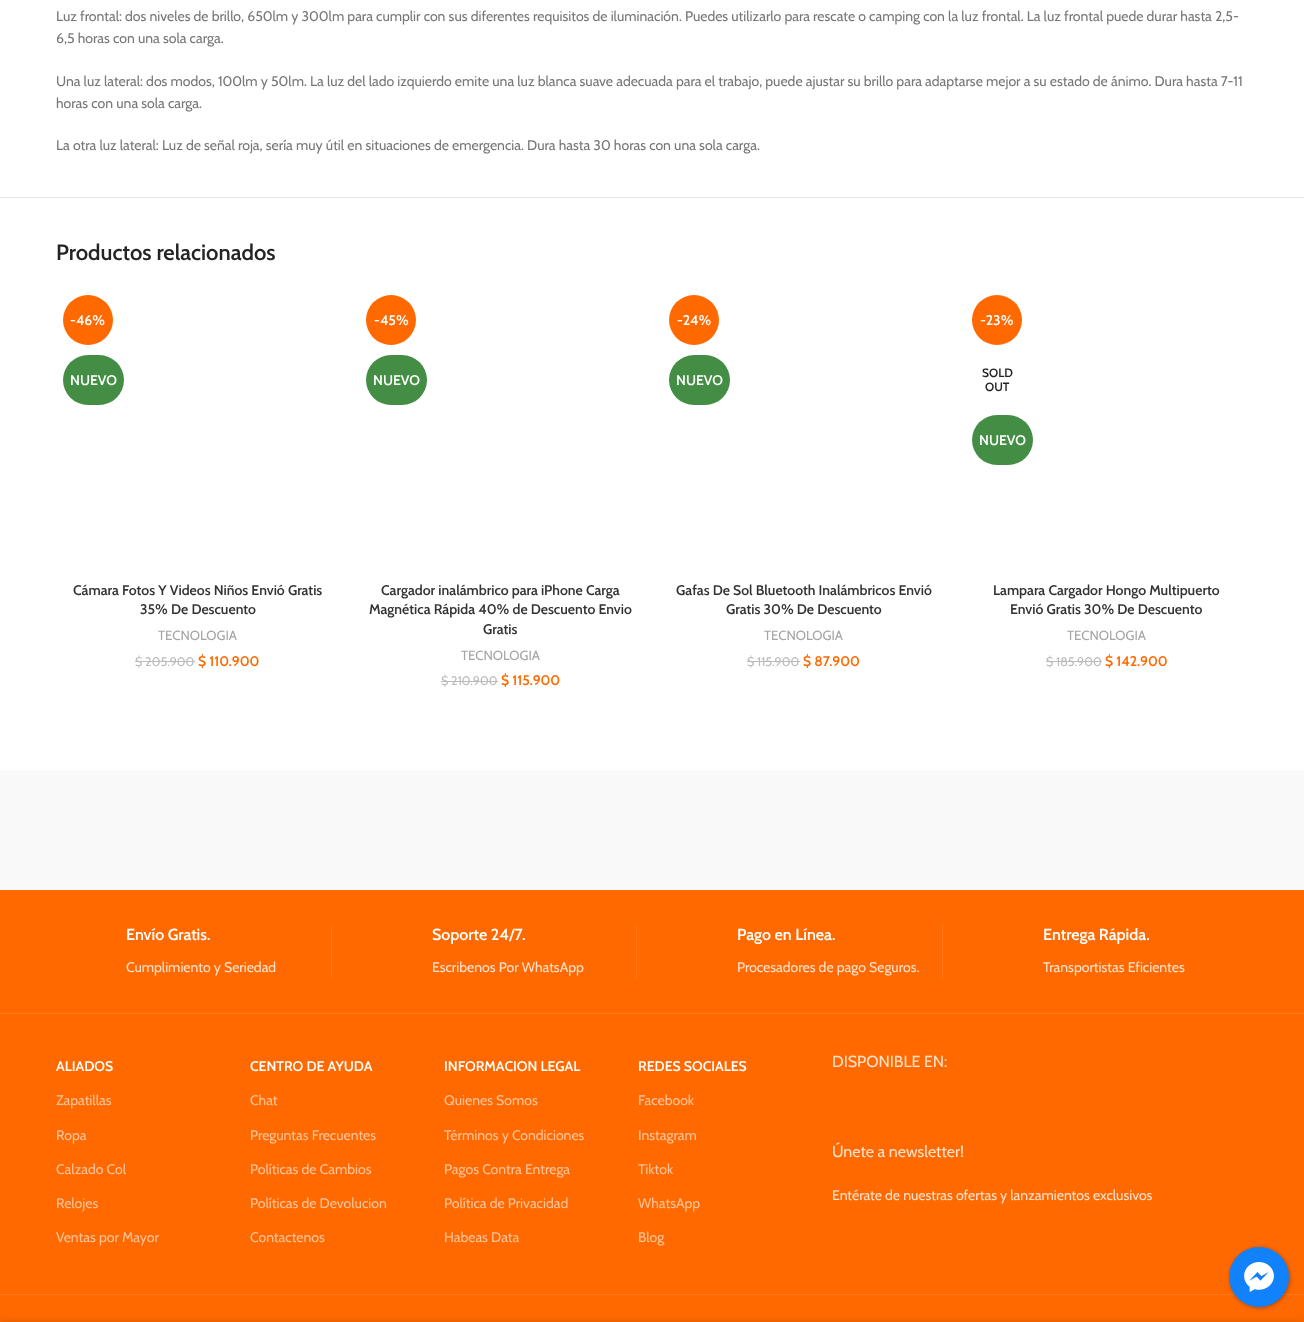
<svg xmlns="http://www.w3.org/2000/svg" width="1304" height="1322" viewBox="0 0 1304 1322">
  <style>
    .t1 { font: 14px Cabin; fill: #777; }
    .t2 { font: 600 22px Cabin; fill: #242424; }
    .t3 { font: 600 14px Cabin; fill: #fff; }
    .t4 { font: 600 14px Cabin; fill: #333; }
    .t5 { font: 13.25px Cabin; fill: #a5a5a5; }
    .t6 { font: 12.5px Cabin; fill: #bbb; }
    .t7 { font: 600 14px Cabin; fill: #ff6900; }
    .t8 { font: 600 12px Cabin; fill: #242424; }
    .t9 { font: 600 16px Cabin; fill: #fff; }
    .t10 { font: 14px Cabin; fill: #ffe1cc; }
    .t11 { font: 14px Cabin; fill: #ffc399; }
    .t12 { font: 16px Cabin; fill: #ffe1cc; }
  </style>
  <rect width="100%" height="100%" fill="#fff"/>
  <rect x="0" y="197" width="1304" height="1" fill="#e4e4e4"/>
  <text x="56" y="21" class="t1">Luz frontal: dos niveles de brillo, 650lm y 300lm para cumplir con sus diferentes requisitos de iluminación. Puedes utilizarlo para rescate o camping con la luz frontal. La luz frontal puede durar hasta 2,5-</text>
  <text x="56" y="43" class="t1">6,5 horas con una sola carga.</text>
  <text x="56" y="86" class="t1">Una luz lateral: dos modos, 100lm y 50lm. La luz del lado izquierdo emite una luz blanca suave adecuada para el trabajo, puede ajustar su brillo para adaptarse mejor a su estado de ánimo. Dura hasta 7-11</text>
  <text x="56" y="108" class="t1">horas con una sola carga.</text>
  <text x="56" y="150" class="t1">La otra luz lateral: Luz de señal roja, sería muy útil en situaciones de emergencia. Dura hasta 30 horas con una sola carga.</text>
  <text x="56" y="260" class="t2">Productos relacionados</text>
  <circle cx="88" cy="320" r="25" fill="#ff6900"/>
  <text x="70" y="325" class="t3">-46%</text>
  <rect x="63" y="355" width="61" height="50" rx="25" fill="#438e44"/>
  <text x="70" y="385" class="t3">NUEVO</text>
  <text x="73" y="595" class="t4">Cámara Fotos Y Videos Niños Envió Gratis</text>
  <text x="140" y="614" class="t4">35% De Descuento</text>
  <text x="158" y="640" class="t5">TECNOLOGIA</text>
  <text x="135" y="666" class="t6">$ 205.900</text>
  <rect x="135" y="661" width="60" height="1" fill="#bbb"/>
  <text x="198" y="666" class="t7">$ 110.900</text>
  <circle cx="391" cy="320" r="25" fill="#ff6900"/>
  <text x="374" y="325" class="t3">-45%</text>
  <rect x="366" y="355" width="61" height="50" rx="25" fill="#438e44"/>
  <text x="373" y="385" class="t3">NUEVO</text>
  <text x="381" y="595" class="t4">Cargador inalámbrico para iPhone Carga</text>
  <text x="369" y="614" class="t4">Magnética Rápida 40% de Descuento Envio</text>
  <text x="483" y="634" class="t4">Gratis</text>
  <text x="461" y="660" class="t5">TECNOLOGIA</text>
  <text x="441" y="685" class="t6">$ 210.900</text>
  <rect x="441" y="681" width="57" height="1" fill="#bbb"/>
  <text x="501" y="685" class="t7">$ 115.900</text>
  <circle cx="694" cy="320" r="25" fill="#ff6900"/>
  <text x="677" y="325" class="t3">-24%</text>
  <rect x="669" y="355" width="61" height="50" rx="25" fill="#438e44"/>
  <text x="676" y="385" class="t3">NUEVO</text>
  <text x="676" y="595" class="t4">Gafas De Sol Bluetooth Inalámbricos Envió</text>
  <text x="726" y="614" class="t4">Gratis 30% De Descuento</text>
  <text x="764" y="640" class="t5">TECNOLOGIA</text>
  <text x="747" y="666" class="t6">$ 115.900</text>
  <rect x="747" y="661" width="53" height="1" fill="#bbb"/>
  <text x="803" y="666" class="t7">$ 87.900</text>
  <circle cx="997" cy="320" r="25" fill="#ff6900"/>
  <text x="980" y="325" class="t3">-23%</text>
  <text x="982" y="377" class="t8">SOLD</text>
  <text x="985" y="391" class="t8">OUT</text>
  <rect x="972" y="415" width="61" height="50" rx="25" fill="#438e44"/>
  <text x="979" y="445" class="t3">NUEVO</text>
  <text x="993" y="595" class="t4">Lampara Cargador Hongo Multipuerto</text>
  <text x="1010" y="614" class="t4">Envió Gratis 30% De Descuento</text>
  <text x="1067" y="640" class="t5">TECNOLOGIA</text>
  <text x="1046" y="666" class="t6">$ 185.900</text>
  <rect x="1046" y="661" width="56" height="1" fill="#bbb"/>
  <text x="1105" y="666" class="t7">$ 142.900</text>
  <rect x="0" y="770" width="1304" height="120" fill="#f9f9f9"/>
  <rect x="0" y="890" width="1304" height="432" fill="#ff6900"/>
  <rect x="0" y="1013" width="1304" height="1" fill="#ff781a"/>
  <rect x="331" y="925" width="1" height="53" fill="#ff781a"/>
  <text x="126" y="940" class="t9">Envío Gratis.</text>
  <text x="126" y="972" class="t10">Cumplimiento y Seriedad</text>
  <rect x="636" y="925" width="1" height="53" fill="#ff781a"/>
  <text x="432" y="940" class="t9">Soporte 24/7.</text>
  <text x="432" y="972" class="t10">Escribenos Por WhatsApp</text>
  <rect x="942" y="925" width="1" height="53" fill="#ff781a"/>
  <text x="737" y="940" class="t9">Pago en Línea.</text>
  <text x="737" y="972" class="t10">Procesadores de pago Seguros.</text>
  <text x="1043" y="940" class="t9">Entrega Rápida.</text>
  <text x="1043" y="972" class="t10">Transportistas Eficientes</text>
  <rect x="0" y="1294" width="1304" height="1" fill="#ff781a"/>
  <text x="56" y="1071" class="t3">ALIADOS</text>
  <text x="56" y="1105" class="t11">Zapatillas</text>
  <text x="56" y="1140" class="t11">Ropa</text>
  <text x="56" y="1174" class="t11">Calzado Col</text>
  <text x="56" y="1208" class="t11">Relojes</text>
  <text x="56" y="1242" class="t11">Ventas por Mayor</text>
  <text x="250" y="1071" class="t3">CENTRO DE AYUDA</text>
  <text x="250" y="1105" class="t11">Chat</text>
  <text x="250" y="1140" class="t11">Preguntas Frecuentes</text>
  <text x="250" y="1174" class="t11">Políticas de Cambios</text>
  <text x="250" y="1208" class="t11">Políticas de Devolucion</text>
  <text x="250" y="1242" class="t11">Contactenos</text>
  <text x="444" y="1071" class="t3">INFORMACION LEGAL</text>
  <text x="444" y="1105" class="t11">Quienes Somos</text>
  <text x="444" y="1140" class="t11">Términos y Condiciones</text>
  <text x="444" y="1174" class="t11">Pagos Contra Entrega</text>
  <text x="444" y="1208" class="t11">Política de Privacidad</text>
  <text x="444" y="1242" class="t11">Habeas Data</text>
  <text x="638" y="1071" class="t3">REDES SOCIALES</text>
  <text x="638" y="1105" class="t11">Facebook</text>
  <text x="638" y="1140" class="t11">Instagram</text>
  <text x="638" y="1174" class="t11">Tiktok</text>
  <text x="638" y="1208" class="t11">WhatsApp</text>
  <text x="638" y="1242" class="t11">Blog</text>
  <text x="832" y="1067" class="t12">DISPONIBLE EN:</text>
  <text x="832" y="1157" class="t12">Únete a newsletter!</text>
  <text x="832" y="1200" class="t10">Entérate de nuestras ofertas y lanzamientos exclusivos</text>
  <rect x="1230" y="1248" width="60" height="60" rx="30" fill="#0000004d" filter="blur(2px)"/>
  <circle cx="1259" cy="1277" r="30" fill="#1182fc"/>
  <image x="1244" y="1262" width="30" height="30" href="images/1.png"/>
  <rect x="0" y="1322" width="1304" height="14" fill="#00000024" filter="blur(4.5px)"/>
</svg>
